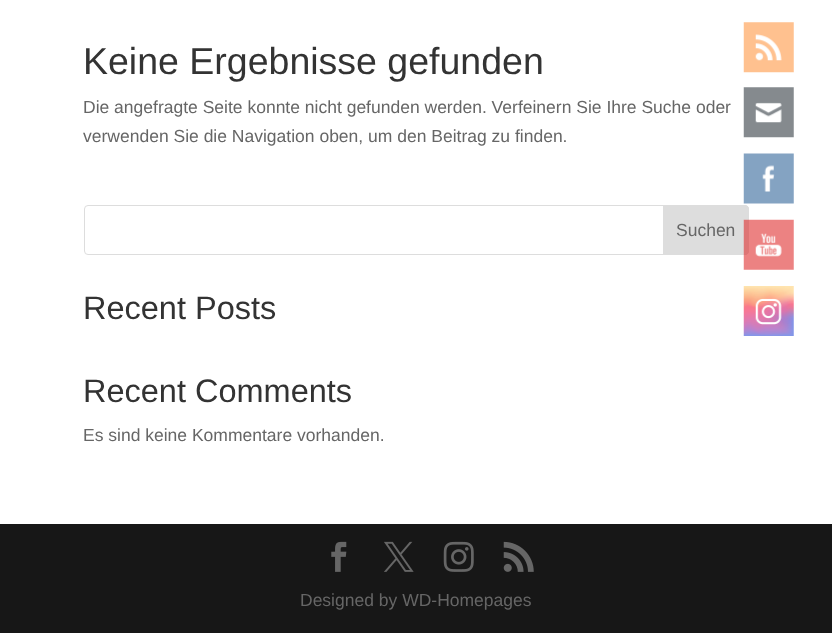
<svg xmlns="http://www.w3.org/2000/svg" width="832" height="633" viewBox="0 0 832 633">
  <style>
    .t1 { font: 37.5px Liberation Sans; fill: #333; }
    .t2 { font: 17.5px Liberation Sans; fill: #666; }
    .t3 { font: 32.5px Liberation Sans; fill: #333; }
  </style>
  <rect width="100%" height="100%" fill="#fff"/>
  <text x="83" y="74" class="t1">Keine Ergebnisse gefunden</text>
  <text x="83" y="113" class="t2">Die angefragte Seite konnte nicht gefunden werden. Verfeinern Sie Ihre Suche oder</text>
  <text x="83" y="142" class="t2">verwenden Sie die Navigation oben, um den Beitrag zu finden.</text>
  <rect x="84.5" y="205.5" width="664" height="49" rx="3.5" fill="none" stroke="#ddd"/>
  <path d="M663.5 205.5H745C747 205.5 748.5 207 748.5 209V251C748.5 253 747 254.5 745 254.5H663.5Z" fill="#ddd" stroke="#ddd"/>
  <text x="676" y="236" class="t2">Suchen</text>
  <text x="83" y="319" class="t3">Recent Posts</text>
  <text x="83" y="402" class="t3">Recent Comments</text>
  <text x="83" y="441" class="t2">Es sind keine Kommentare vorhanden.</text>
  <rect x="0" y="524" width="832" height="109" fill="#171717"/>
  <image x="331" y="541" width="16" height="31" href="images/1.png"/>
  <image x="384" y="541" width="30" height="31" href="images/2.png"/>
  <image x="443" y="541" width="31" height="31" href="images/3.png"/>
  <image x="503" y="541" width="31" height="31" href="images/4.png"/>
  <text x="300" y="606" class="t2">Designed by WD-Homepages</text>
  <image x="743" y="22" width="51" height="51" href="images/5.png"/>
  <image x="743" y="87" width="51" height="51" href="images/6.png"/>
  <image x="743" y="153" width="51" height="51" href="images/7.png"/>
  <image x="743" y="219" width="51" height="51" href="images/8.png"/>
  <image x="743" y="286" width="51" height="50" href="images/9.png"/>
</svg>
